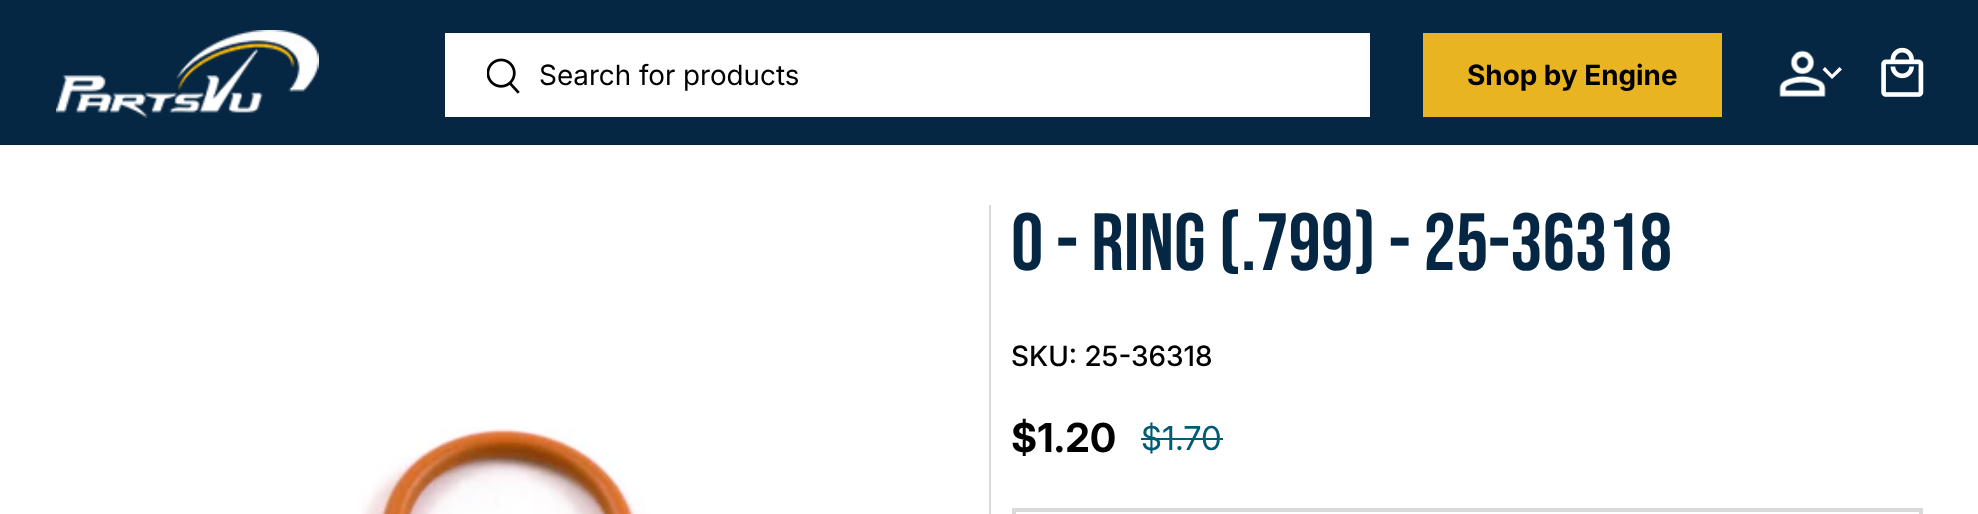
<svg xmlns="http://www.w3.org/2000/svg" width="1978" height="514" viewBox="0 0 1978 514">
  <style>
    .t1 { font: 28px 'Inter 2'; fill: #000; }
    .t2 { font: bold 28px 'Inter 2'; fill: #000; }
    .t3 { font: 81px Bebas Neue; fill: #062743; }
    .t4 { font: 500 28px Inter; fill: #000; }
    .t5 { font: bold 40px Inter; fill: #000; }
    .t6 { font: 33px Inter; fill: #005b75; }
  </style>
  <defs>
    <linearGradient id="g1" gradientUnits="userSpaceOnUse" x1="858" y1="-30" x2="1702" y2="180"><stop offset="0.6" stop-color="#fbcd4f"/><stop offset="0.6" stop-color="#e9b422"/><stop offset="1" stop-color="#e9b422"/></linearGradient>
  </defs>
  <rect width="100%" height="100%" fill="#fff"/>
  <rect x="0" y="0" width="1978" height="145" fill="#062743"/>
  <image x="56" y="30" width="263" height="88" href="images/1.png"/>
  <rect x="445" y="33" width="925" height="84" fill="#fff"/>
  <image x="487" y="58" width="33" height="36" href="images/2.png"/>
  <text x="539" y="85" class="t1">Search for products</text>
  <rect x="1427" y="37" width="291" height="76" fill="url(#g1)"/>
  <rect x="1425" y="35" width="295" height="80" fill="none" stroke="#e9b422" stroke-width="4"/>
  <text x="1467" y="85" class="t2">Shop by Engine</text>
  <image x="1779" y="50" width="47" height="47" href="images/3.png"/>
  <path d="M1832 79L1822.5 69.5L1825 67L1832 74.5L1839.5 67L1842 69.5Z" fill="#fff"/>
  <image x="1881" y="47" width="43" height="50" href="images/4.png"/>
  <rect x="989" y="205" width="2" height="309" fill="#d9d9d9"/>
  <text x="1011" y="270" class="t3">O - RING (.799) - 25-36318</text>
  <text x="1011" y="366" class="t4">SKU: 25-36318</text>
  <text x="1011" y="452" class="t5">$1.20</text>
  <text x="1141" y="450" class="t6">$1.70</text>
  <rect x="1141" y="438" width="82" height="2" fill="#005b75"/>
  <rect x="1014" y="510" width="907" height="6" fill="none" stroke="#d9d9d9" stroke-width="4"/>
  <image x="361" y="427" width="284" height="87" href="images/5.png"/>
</svg>
